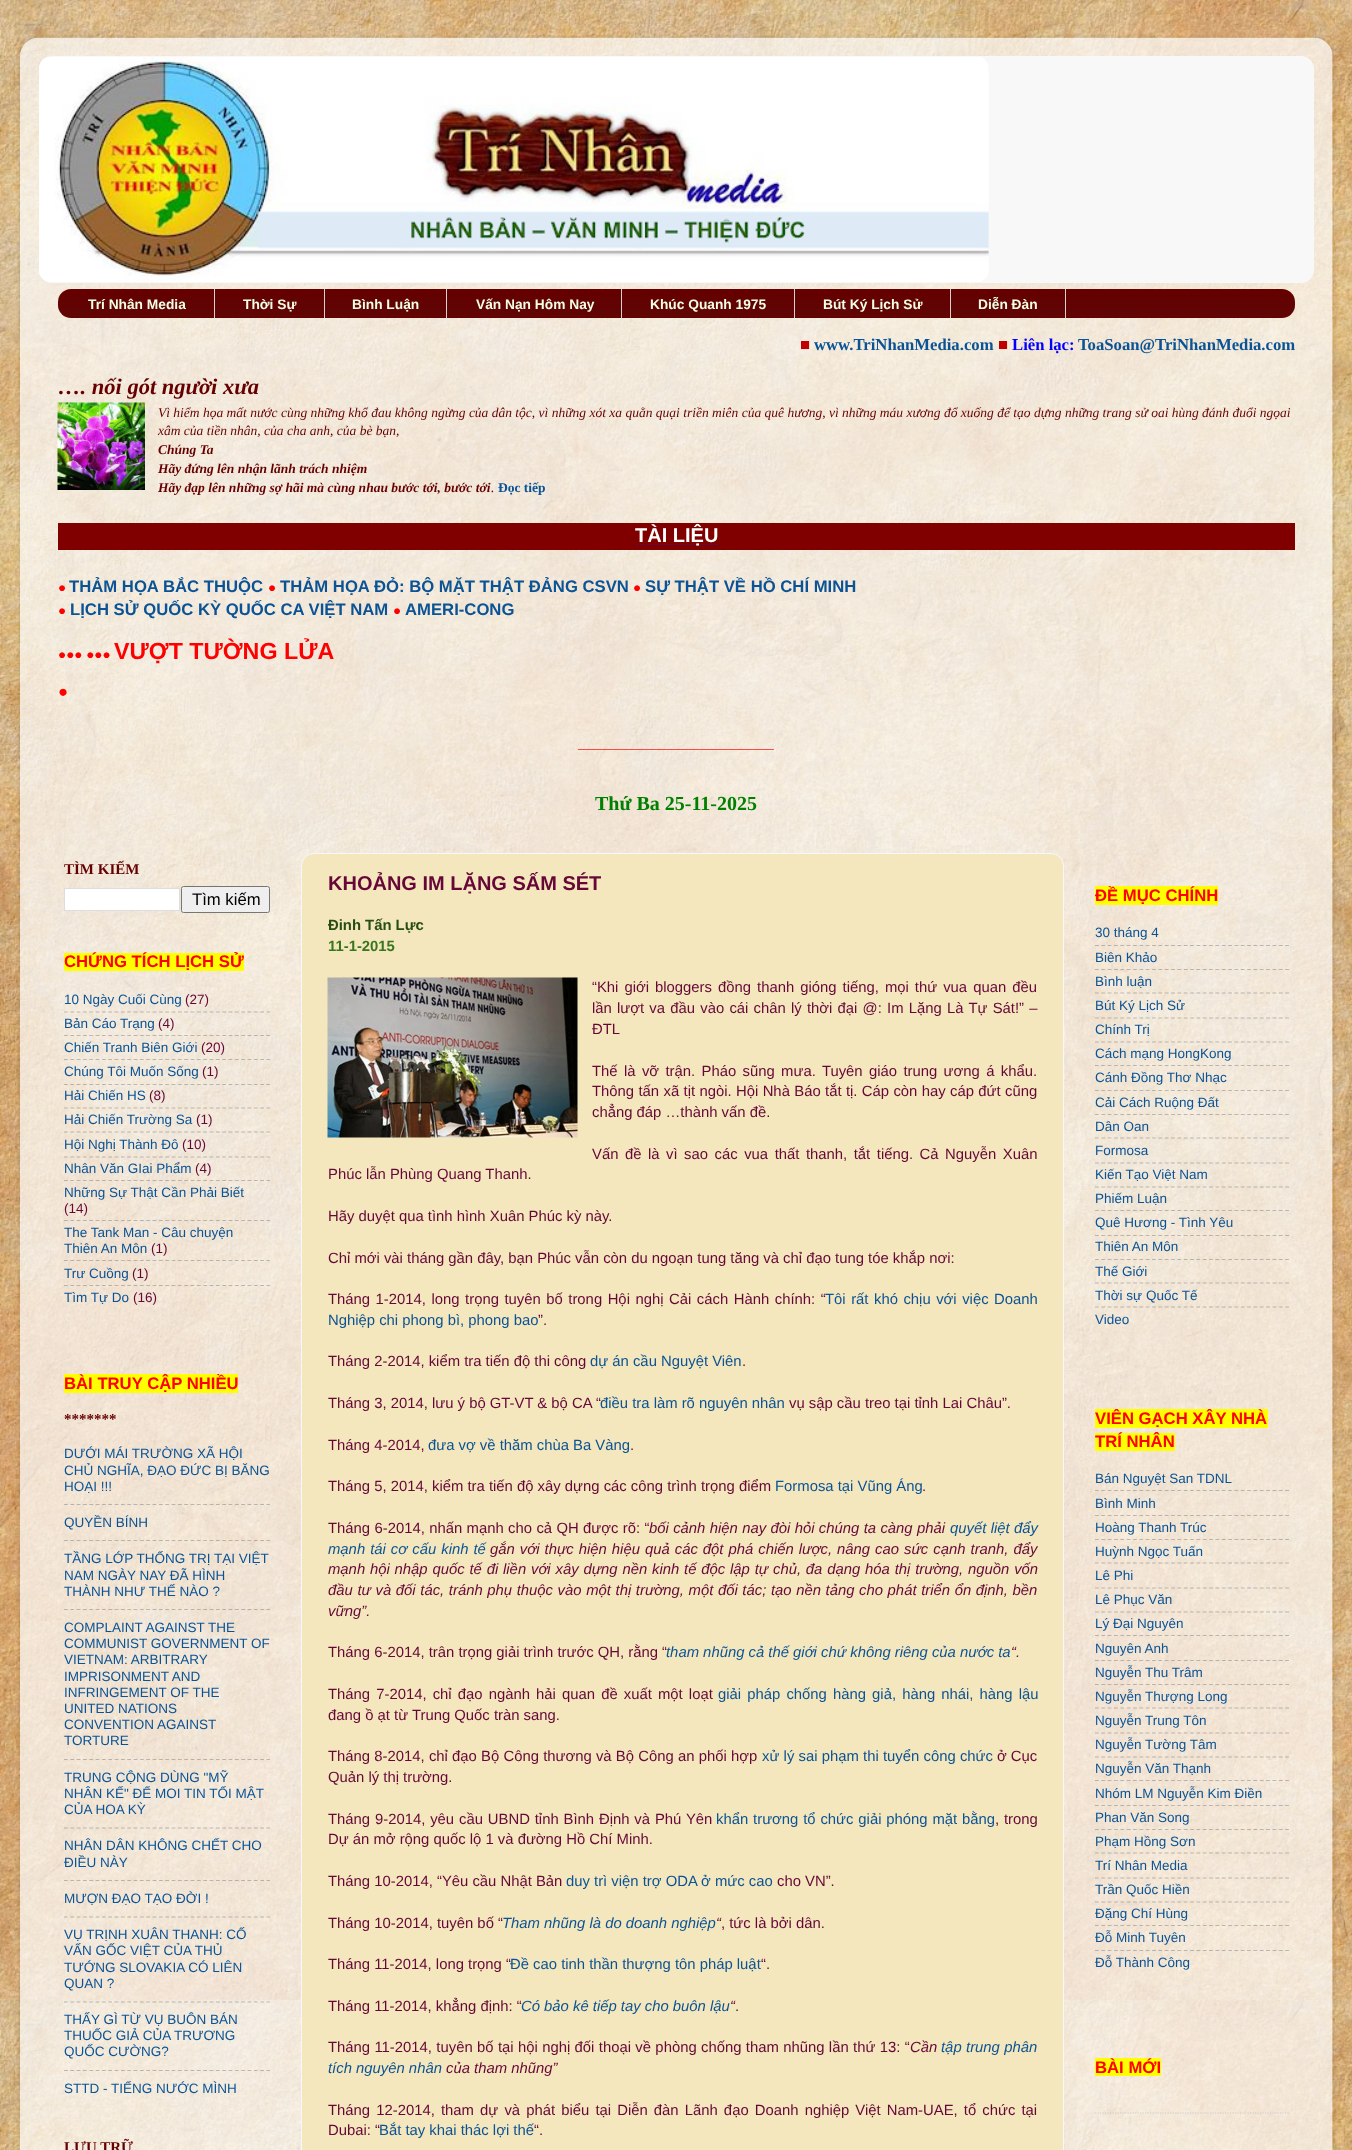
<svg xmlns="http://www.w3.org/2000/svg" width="1352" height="2150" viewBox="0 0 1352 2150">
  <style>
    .t1 { font: bold 13.75px Liberation Sans; fill: #f3ffe4; }
    .t2 { font: bold 16.7px Liberation Serif; fill: #c00000; }
    .t3 { font: bold 16.7px Liberation Serif; fill: #0b5394; }
    .t4 { font: bold 16.7px Liberation Serif; fill: #00f; }
    .t5 { font: italic bold 22.5px Liberation Serif; fill: #600; }
    .t6 { font: italic 13.5px Liberation Serif; fill: #600; }
    .t7 { font: italic bold 13.5px Liberation Serif; fill: #600; }
    .t8 { font: bold 13.5px Liberation Serif; fill: #0b5394; }
    .t9 { font: bold 20px Liberation Sans; fill: #fff; }
    .t10 { font: 13.5px Liberation Sans; fill: #f00; }
    .t11 { font: bold 16.7px Liberation Sans; fill: #0b5394; }
    .t12 { font: bold 23.25px Liberation Sans; fill: #f00; }
    .t13 { font: 16.7px Liberation Sans; fill: #f00; }
    .t14 { font: 13.5px Liberation Serif; fill: #f00; }
    .t15 { font: bold 20px Liberation Serif; fill: #008000; }
    .t16 { font: bold 15px Liberation Serif; fill: #600; }
    .t17 { font: 16.7px Liberation Sans; fill: #000; }
    .t18 { font: bold 16.7px Liberation Sans; fill: #f00; }
    .t19 { font: 13.5px Liberation Sans; fill: #0b5394; }
    .t20 { font: 13.5px Liberation Sans; fill: #660737; }
    .t21 { font: bold 20px Liberation Sans; fill: #660737; }
    .t22 { font: bold 14.85px Liberation Sans; fill: #274e13; }
    .t23 { font: bold 14.85px Liberation Sans; fill: #38761d; }
    .t24 { font: 14.85px Liberation Sans; fill: #660737; }
    .t25 { font: 14.85px Liberation Sans; fill: #0b5394; }
    .t26 { font: italic 14.85px Liberation Sans; fill: #660737; }
    .t27 { font: italic 14.85px Liberation Sans; fill: #0b5394; }
  </style>
  <defs>
    <clipPath id="clip1"><path d="M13 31H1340V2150H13ZM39 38H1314C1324.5 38 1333 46.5 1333 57V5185C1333 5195.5 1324.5 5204 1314 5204H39C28.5 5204 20 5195.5 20 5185V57C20 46.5 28.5 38 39 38Z" clip-rule="evenodd"/></clipPath>
  </defs>
  <rect width="100%" height="100%" fill="#fff"/>
  <image x="0" y="0" width="1352" height="2150" href="images/1.png"/>
  <g clip-path="url(#clip1)">
    <rect x="20" y="38" width="1313" height="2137" rx="19" fill="#00000026" filter="blur(2px)"/>
  </g>
  <image x="20" y="37" width="1313" height="2113" href="images/2.png"/>
  <rect x="39" y="56" width="1275" height="227" rx="13" fill="#f8f8f8"/>
  <image x="39" y="57" width="950" height="225" href="images/3.png"/>
  <rect x="58" y="289" width="1237" height="29" rx="13" fill="#600"/>
  <image x="58" y="294" width="1237" height="23" href="images/4.png"/>
  <rect x="214" y="289" width="1" height="29" fill="#d1d1d1"/>
  <text x="88" y="309" class="t1">Trí Nhân Media</text>
  <rect x="324" y="289" width="1" height="29" fill="#d1d1d1"/>
  <text x="243" y="309" class="t1">Thời Sự</text>
  <rect x="446" y="289" width="1" height="29" fill="#d1d1d1"/>
  <text x="352" y="309" class="t1">Bình Luận</text>
  <rect x="621" y="289" width="1" height="29" fill="#d1d1d1"/>
  <text x="476" y="309" class="t1">Vấn Nạn Hôm Nay</text>
  <rect x="794" y="289" width="1" height="29" fill="#d1d1d1"/>
  <text x="650" y="309" class="t1">Khúc Quanh 1975</text>
  <rect x="950" y="289" width="1" height="29" fill="#d1d1d1"/>
  <text x="823" y="309" class="t1">Bút Ký Lịch Sử</text>
  <rect x="1065" y="289" width="1" height="29" fill="#d1d1d1"/>
  <text x="978" y="309" class="t1">Diễn Đàn</text>
  <text x="800" y="350" class="t2">■</text>
  <text x="814" y="350" class="t3">www.TriNhanMedia.com</text>
  <text x="998" y="350" class="t2">■</text>
  <text x="1012" y="350" class="t4">Liên lạc:</text>
  <text x="1078" y="350" class="t3">ToaSoan@TriNhanMedia.com</text>
  <text x="58" y="394" class="t5">…. nối gót người xưa</text>
  <image x="57" y="402" width="88" height="88" href="images/5.png"/>
  <text x="158" y="417" class="t6">Vì hiểm họa mất nước cùng những khổ đau không ngừng của dân tộc, vì những xót xa quằn quại triền miên của quê hương, vì những máu xương đổ xuống để tạo dựng những trang sử oai hùng</text>
  <text x="1202" y="417" class="t6">đánh đuổi ngọai</text>
  <text x="158" y="435" class="t6">xâm của tiền nhân, của cha anh, của bè bạn,</text>
  <text x="158" y="454" class="t7">Chúng Ta</text>
  <text x="158" y="473" class="t7">Hãy đứng lên nhận lãnh trách nhiệm</text>
  <text x="158" y="492" class="t7">Hãy đạp lên những sợ hãi mà cùng nhau bước tới, bước tới</text>
  <text x="491" y="492" class="t6">.</text>
  <text x="498" y="492" class="t8">Đọc tiếp</text>
  <rect x="58" y="523" width="1237" height="27" fill="#800000"/>
  <rect x="635" y="544" width="83" height="1" fill="#660737"/>
  <text x="635" y="542" class="t9">TÀI LIỆU</text>
  <text x="58" y="592" class="t10">●</text>
  <text x="69" y="592" class="t11">THẢM HỌA BẮC THUỘC</text>
  <text x="268" y="592" class="t10">●</text>
  <text x="280" y="592" class="t11">THẢM HỌA ĐỎ: BỘ MẶT THẬT ĐẢNG CSVN</text>
  <text x="633" y="592" class="t10">●</text>
  <text x="645" y="592" class="t11">SỰ THẬT VỀ HỒ CHÍ MINH</text>
  <text x="58" y="615" class="t10">●</text>
  <text x="70" y="615" class="t11">LỊCH SỬ QUỐC KỲ QUỐC CA VIỆT NAM</text>
  <text x="393" y="615" class="t10">●</text>
  <text x="405" y="615" class="t11">AMERI-CONG</text>
  <text x="58" y="659" class="t10">●●● ●●●</text>
  <text x="114" y="659" class="t12">VƯỢT TƯỜNG LỬA</text>
  <text x="58" y="697" class="t13">●</text>
  <text x="578" y="748" class="t14">_____________________________</text>
  <text x="595" y="810" class="t15">Thứ Ba 25-11-2025</text>
  <text x="64" y="874" class="t16">TÌM KIẾM</text>
  <rect x="64.5" y="888.5" width="115" height="22" fill="#fff" stroke="#ddd"/>
  <rect x="181.5" y="886.5" width="88" height="26" rx="2" fill="#efefef" stroke="#767676"/>
  <text x="192" y="905" class="t17">Tìm kiếm</text>
  <rect x="64" y="953" width="180" height="18" fill="#ff0"/>
  <text x="64" y="967" class="t18">CHỨNG TÍCH LỊCH SỬ</text>
  <text x="64" y="1004" class="t19">10 Ngày Cuối Cùng</text>
  <text x="185" y="1004" class="t20">(27)</text>
  <path d="M64 1012H270" fill="none" stroke="#80808080" stroke-width="1.2" stroke-dasharray="3.75 2.58"/>
  <text x="64" y="1028" class="t19">Bản Cáo Trạng</text>
  <text x="158" y="1028" class="t20">(4)</text>
  <path d="M64 1035.5H270" fill="none" stroke="#80808080" stroke-width="1.2" stroke-dasharray="3.75 2.58"/>
  <text x="64" y="1052" class="t19">Chiến Tranh Biên Giới</text>
  <text x="201" y="1052" class="t20">(20)</text>
  <path d="M64 1059.5H270" fill="none" stroke="#80808080" stroke-width="1.2" stroke-dasharray="3.75 2.58"/>
  <text x="64" y="1076" class="t19">Chúng Tôi Muốn Sống</text>
  <text x="202" y="1076" class="t20">(1)</text>
  <path d="M64 1084.5H270" fill="none" stroke="#80808080" stroke-width="1.2" stroke-dasharray="3.75 2.58"/>
  <text x="64" y="1100" class="t19">Hải Chiến HS</text>
  <text x="149" y="1100" class="t20">(8)</text>
  <path d="M64 1108H270" fill="none" stroke="#80808080" stroke-width="1.2" stroke-dasharray="3.75 2.58"/>
  <text x="64" y="1124" class="t19">Hải Chiến Trường Sa</text>
  <text x="196" y="1124" class="t20">(1)</text>
  <path d="M64 1132H270" fill="none" stroke="#80808080" stroke-width="1.2" stroke-dasharray="3.75 2.58"/>
  <text x="64" y="1149" class="t19">Hội Nghị Thành Đô</text>
  <text x="182" y="1149" class="t20">(10)</text>
  <path d="M64 1157H270" fill="none" stroke="#80808080" stroke-width="1.2" stroke-dasharray="3.75 2.58"/>
  <text x="64" y="1173" class="t19">Nhân Văn GIai Phẩm</text>
  <text x="195" y="1173" class="t20">(4)</text>
  <path d="M64 1180.5H270" fill="none" stroke="#80808080" stroke-width="1.2" stroke-dasharray="3.75 2.58"/>
  <text x="64" y="1197" class="t19">Những Sự Thật Cần Phải Biết</text>
  <text x="64" y="1213" class="t20">(14)</text>
  <path d="M64 1220.5H270" fill="none" stroke="#80808080" stroke-width="1.2" stroke-dasharray="3.75 2.58"/>
  <text x="64" y="1237" class="t19">The Tank Man - Câu chuyện</text>
  <text x="64" y="1253" class="t19">Thiên An Môn</text>
  <text x="151" y="1253" class="t20">(1)</text>
  <path d="M64 1260.5H270" fill="none" stroke="#80808080" stroke-width="1.2" stroke-dasharray="3.75 2.58"/>
  <text x="64" y="1278" class="t19">Trư Cuồng</text>
  <text x="132" y="1278" class="t20">(1)</text>
  <path d="M64 1285.5H270" fill="none" stroke="#80808080" stroke-width="1.2" stroke-dasharray="3.75 2.58"/>
  <text x="64" y="1302" class="t19">Tìm Tự Do</text>
  <text x="133" y="1302" class="t20">(16)</text>
  <rect x="64" y="1374" width="174" height="19" fill="#ff0"/>
  <text x="64" y="1389" class="t18">BÀI TRUY CẬP NHIỀU</text>
  <text x="64" y="1424" class="t16">*******</text>
  <text x="64" y="1458" class="t19">DƯỚI MÁI TRƯỜNG XÃ HỘI</text>
  <text x="64" y="1475" class="t19">CHỦ NGHĨA, ĐẠO ĐỨC BỊ BĂNG</text>
  <text x="64" y="1491" class="t19">HOẠI !!!</text>
  <path d="M64 1504.5H270" fill="none" stroke="#80808080" stroke-width="1.2" stroke-dasharray="3.75 2.58"/>
  <text x="64" y="1527" class="t19">QUYỀN BÍNH</text>
  <path d="M64 1540.5H270" fill="none" stroke="#80808080" stroke-width="1.2" stroke-dasharray="3.75 2.58"/>
  <text x="64" y="1563" class="t19">TẦNG LỚP THỐNG TRỊ TẠI VIỆT</text>
  <text x="64" y="1580" class="t19">NAM NGÀY NAY ĐÃ HÌNH</text>
  <text x="64" y="1596" class="t19">THÀNH NHƯ THẾ NÀO ?</text>
  <path d="M64 1609.5H270" fill="none" stroke="#80808080" stroke-width="1.2" stroke-dasharray="3.75 2.58"/>
  <text x="64" y="1632" class="t19">COMPLAINT AGAINST THE</text>
  <text x="64" y="1648" class="t19">COMMUNIST GOVERNMENT OF</text>
  <text x="64" y="1664" class="t19">VIETNAM: ARBITRARY</text>
  <text x="64" y="1681" class="t19">IMPRISONMENT AND</text>
  <text x="64" y="1697" class="t19">INFRINGEMENT OF THE</text>
  <text x="64" y="1713" class="t19">UNITED NATIONS</text>
  <text x="64" y="1729" class="t19">CONVENTION AGAINST</text>
  <text x="64" y="1745" class="t19">TORTURE</text>
  <path d="M64 1759.5H270" fill="none" stroke="#80808080" stroke-width="1.2" stroke-dasharray="3.75 2.58"/>
  <text x="64" y="1782" class="t19">TRUNG CỘNG DÙNG "MỸ</text>
  <text x="64" y="1798" class="t19">NHÂN KẾ" ĐỂ MOI TIN TỐI MẬT</text>
  <text x="64" y="1814" class="t19">CỦA HOA KỲ</text>
  <path d="M64 1828H270" fill="none" stroke="#80808080" stroke-width="1.2" stroke-dasharray="3.75 2.58"/>
  <text x="64" y="1850" class="t19">NHÂN DÂN KHÔNG CHẾT CHO</text>
  <text x="64" y="1867" class="t19">ĐIỀU NÀY</text>
  <path d="M64 1880.5H270" fill="none" stroke="#80808080" stroke-width="1.2" stroke-dasharray="3.75 2.58"/>
  <text x="64" y="1903" class="t19">MƯỢN ĐẠO TẠO ĐỜI !</text>
  <path d="M64 1917H270" fill="none" stroke="#80808080" stroke-width="1.2" stroke-dasharray="3.75 2.58"/>
  <text x="64" y="1939" class="t19">VỤ TRỊNH XUÂN THANH: CỐ</text>
  <text x="64" y="1955" class="t19">VẤN GỐC VIỆT CỦA THỦ</text>
  <text x="64" y="1972" class="t19">TƯỚNG SLOVAKIA CÓ LIÊN</text>
  <text x="64" y="1988" class="t19">QUAN ?</text>
  <path d="M64 2002H270" fill="none" stroke="#80808080" stroke-width="1.2" stroke-dasharray="3.75 2.58"/>
  <text x="64" y="2024" class="t19">THẤY GÌ TỪ VỤ BUÔN BÁN</text>
  <text x="64" y="2040" class="t19">THUỐC GIẢ CỦA TRƯƠNG</text>
  <text x="64" y="2056" class="t19">QUỐC CƯỜNG?</text>
  <path d="M64 2070.5H270" fill="none" stroke="#80808080" stroke-width="1.2" stroke-dasharray="3.75 2.58"/>
  <text x="64" y="2093" class="t19">STTD - TIẾNG NƯỚC MÌNH</text>
  <text x="64" y="2152" class="t16">LƯU TRỮ</text>
  <rect x="301.5" y="853.5" width="762" height="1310" rx="12.5" fill="#f4e6bd" stroke="#f8f8f8"/>
  <text x="328" y="890" class="t21">KHOẢNG IM LẶNG SẤM SÉT</text>
  <text x="328" y="930" class="t22">Đinh Tấn Lực</text>
  <text x="328" y="951" class="t23">11-1-2015</text>
  <image x="327" y="977" width="251" height="161" href="images/6.png"/>
  <text x="592" y="992" word-spacing="1.9" class="t24">“Khi giới bloggers đồng thanh gióng tiếng, mọi thứ vua quan đều</text>
  <text x="592" y="1013" word-spacing="1.1" class="t24">lần lượt va đầu vào cái chân lý thời đại @: Im Lặng Là Tự Sát!” –</text>
  <text x="592" y="1034" class="t24">ĐTL</text>
  <text x="592" y="1076" word-spacing="2.25" class="t24">Thế là vỡ trận. Pháo sũng mưa. Tuyên giáo trung ương á khẩu.</text>
  <text x="592" y="1096" word-spacing="0.25" class="t24">Thông tấn xã tịt ngòi. Hội Nhà Báo tắt tị. Cáp còn hay cáp đứt cũng</text>
  <text x="592" y="1117" class="t24">chẳng đáp …thành vấn đề.</text>
  <text x="592" y="1159" word-spacing="2.4" class="t24">Vấn đề là vì sao các vua thất thanh, tắt tiếng. Cả Nguyễn Xuân</text>
  <text x="328" y="1179" class="t24">Phúc lẫn Phùng Quang Thanh.</text>
  <text x="328" y="1221" class="t24">Hãy duyệt qua tình hình Xuân Phúc kỳ này.</text>
  <text x="328" y="1263" class="t24">Chỉ mới vài tháng gần đây, bạn Phúc vẫn còn du ngoạn tung tăng và chỉ đạo tung tóe khắp nơi:</text>
  <text x="328" y="1304" word-spacing="1.4" class="t24">Tháng 1-2014, long trọng tuyên bố trong Hội nghị Cải cách Hành chính: “</text>
  <text x="825" y="1304" word-spacing="1.4" class="t25">Tôi rất khó chịu với việc Doanh</text>
  <text x="328" y="1325" class="t25">Nghiệp chi phong bì, phong bao</text>
  <text x="538" y="1325" class="t24">”.</text>
  <text x="328" y="1366" class="t24">Tháng 2-2014, kiểm tra tiến độ thi công</text>
  <text x="590" y="1366" class="t25">dự án cầu Nguyệt Viên</text>
  <text x="742" y="1366" class="t24">.</text>
  <text x="328" y="1408" class="t24">Tháng 3, 2014, lưu ý bộ GT-VT &amp; bộ CA “</text>
  <text x="600" y="1408" class="t25">điều tra làm rõ nguyên nhân</text>
  <text x="789" y="1408" class="t24">vụ sập cầu treo tại tỉnh Lai Châu”.</text>
  <text x="328" y="1450" class="t24">Tháng 4-2014,</text>
  <text x="428" y="1450" class="t25">đưa vợ về thăm chùa Ba Vàng</text>
  <text x="630" y="1450" class="t24">.</text>
  <text x="328" y="1491" class="t24">Tháng 5, 2014, kiểm tra tiến độ xây dựng các công trình trọng điểm</text>
  <text x="775" y="1491" class="t25">Formosa tại Vũng Áng</text>
  <text x="922" y="1491" class="t24">.</text>
  <text x="328" y="1533" word-spacing="0.25" class="t24">Tháng 6-2014, nhấn mạnh cho cả QH được rõ: “</text>
  <text x="649" y="1533" word-spacing="0.25" class="t26">bối cảnh hiện nay đòi hỏi chúng ta càng phải</text>
  <text x="950" y="1533" word-spacing="0.25" class="t27">quyết liệt đẩy</text>
  <text x="328" y="1554" word-spacing="0.9" class="t27">mạnh tái cơ cấu kinh tế</text>
  <text x="490" y="1554" word-spacing="0.9" class="t26">gắn với thực hiện hiệu quả các đột phá chiến lược, nâng cao sức cạnh tranh, đẩy</text>
  <text x="328" y="1574" word-spacing="0.7" class="t26">mạnh hội nhập quốc tế đi liền với xây dựng nền kinh tế độc lập tự chủ, đa dạng hóa thị trường, nguồn vốn</text>
  <text x="328" y="1595" word-spacing="0.5" class="t26">đầu tư và đối tác, tránh phụ thuộc vào một thị trường, một đối tác; tạo nền tảng cho phát triển ổn định, bền</text>
  <text x="328" y="1616" class="t26">vững”.</text>
  <text x="328" y="1657" class="t24">Tháng 6-2014, trân trọng giải trình trước QH, rằng “</text>
  <text x="666" y="1657" class="t27">tham nhũng cả thế giới chứ không riêng của nước ta</text>
  <text x="1011" y="1657" class="t26">“.</text>
  <text x="328" y="1699" word-spacing="2" class="t24">Tháng 7-2014, chỉ đạo ngành hải quan đề xuất một loạt</text>
  <text x="718" y="1699" word-spacing="2" class="t25">giải pháp chống hàng giả, hàng nhái, hàng lậu</text>
  <text x="328" y="1720" class="t24">đang ồ ạt từ Trung Quốc tràn sang.</text>
  <text x="328" y="1761" word-spacing="0.1" class="t24">Tháng 8-2014, chỉ đạo Bộ Công thương và Bộ Công an phối hợp</text>
  <text x="762" y="1761" word-spacing="0.1" class="t25">xử lý sai phạm thi tuyển công chức</text>
  <text x="997" y="1761" class="t24">ở Cục</text>
  <text x="328" y="1782" class="t24">Quản lý thị trường.</text>
  <text x="328" y="1824" word-spacing="0.75" class="t24">Tháng 9-2014, yêu cầu UBND tỉnh Bình Định và Phú Yên</text>
  <text x="716" y="1824" word-spacing="0.75" class="t25">khẩn trương tổ chức giải phóng mặt bằng</text>
  <text x="995" y="1824" word-spacing="0.75" class="t24">, trong</text>
  <text x="328" y="1844" class="t24">Dự án mở rộng quốc lộ 1 và đường Hồ Chí Minh.</text>
  <text x="328" y="1886" class="t24">Tháng 10-2014, “Yêu cầu Nhật Bản</text>
  <text x="566" y="1886" class="t25">duy trì viện trợ ODA ở mức cao</text>
  <text x="777" y="1886" class="t24">cho VN”.</text>
  <text x="328" y="1928" class="t24">Tháng 10-2014, tuyên bố “</text>
  <text x="502" y="1928" class="t27">Tham nhũng là do doanh nghiệp</text>
  <text x="716" y="1928" class="t26">“</text>
  <text x="721" y="1928" class="t24">, tức là bởi dân.</text>
  <text x="328" y="1969" class="t24">Tháng 11-2014, long trọng “</text>
  <text x="510" y="1969" class="t25">Đề cao tinh thần thượng tôn pháp luật</text>
  <text x="761" y="1969" class="t24">“.</text>
  <text x="328" y="2011" class="t24">Tháng 11-2014, khẳng định: “</text>
  <text x="521" y="2011" class="t27">Có bảo kê tiếp tay cho buôn lậu</text>
  <text x="730" y="2011" class="t26">“</text>
  <text x="735" y="2011" class="t24">.</text>
  <text x="328" y="2052" word-spacing="0.25" class="t24">Tháng 11-2014, tuyên bố tại hội nghị đối thoại về phòng chống tham nhũng lần thứ 13: “</text>
  <text x="910" y="2052" class="t26">Cần</text>
  <text x="941" y="2052" word-spacing="0.25" class="t27">tập trung phân</text>
  <text x="328" y="2073" class="t27">tích nguyên nhân</text>
  <text x="446" y="2073" class="t26">của tham nhũng”</text>
  <text x="328" y="2115" word-spacing="2" class="t24">Tháng 12-2014, tham dự và phát biểu tại Diễn đàn Lãnh đạo Doanh nghiệp Việt Nam-UAE, tổ chức tại</text>
  <text x="328" y="2135" class="t24">Dubai: “</text>
  <text x="379" y="2135" class="t25">Bắt tay khai thác lợi thế</text>
  <text x="534" y="2135" class="t24">“.</text>
  <rect x="1095" y="886" width="123" height="19" fill="#ff0"/>
  <text x="1095" y="901" class="t18">ĐỀ MỤC CHÍNH</text>
  <text x="1095" y="937" class="t19">30 tháng 4</text>
  <path d="M1095 945.5H1289" fill="none" stroke="#80808080" stroke-width="1.2" stroke-dasharray="3.75 2.59"/>
  <text x="1095" y="962" class="t19">Biên Khảo</text>
  <path d="M1095 969.5H1289" fill="none" stroke="#80808080" stroke-width="1.2" stroke-dasharray="3.75 2.59"/>
  <text x="1095" y="986" class="t19">Bình luận</text>
  <path d="M1095 993H1289" fill="none" stroke="#80808080" stroke-width="1.2" stroke-dasharray="3.75 2.59"/>
  <text x="1095" y="1010" class="t19">Bút Ký Lịch Sử</text>
  <path d="M1095 1018H1289" fill="none" stroke="#80808080" stroke-width="1.2" stroke-dasharray="3.75 2.59"/>
  <text x="1095" y="1034" class="t19">Chính Trị</text>
  <path d="M1095 1042H1289" fill="none" stroke="#80808080" stroke-width="1.2" stroke-dasharray="3.75 2.59"/>
  <text x="1095" y="1058" class="t19">Cách mạng HongKong</text>
  <path d="M1095 1065.5H1289" fill="none" stroke="#80808080" stroke-width="1.2" stroke-dasharray="3.75 2.59"/>
  <text x="1095" y="1082" class="t19">Cánh Đồng Thơ Nhạc</text>
  <path d="M1095 1090.5H1289" fill="none" stroke="#80808080" stroke-width="1.2" stroke-dasharray="3.75 2.59"/>
  <text x="1095" y="1107" class="t19">Cải Cách Ruộng Đất</text>
  <path d="M1095 1114.5H1289" fill="none" stroke="#80808080" stroke-width="1.2" stroke-dasharray="3.75 2.59"/>
  <text x="1095" y="1131" class="t19">Dân Oan</text>
  <path d="M1095 1138H1289" fill="none" stroke="#80808080" stroke-width="1.2" stroke-dasharray="3.75 2.59"/>
  <text x="1095" y="1155" class="t19">Formosa</text>
  <path d="M1095 1163H1289" fill="none" stroke="#80808080" stroke-width="1.2" stroke-dasharray="3.75 2.59"/>
  <text x="1095" y="1179" class="t19">Kiến Tạo Việt Nam</text>
  <path d="M1095 1187H1289" fill="none" stroke="#80808080" stroke-width="1.2" stroke-dasharray="3.75 2.59"/>
  <text x="1095" y="1203" class="t19">Phiếm Luận</text>
  <path d="M1095 1210.5H1289" fill="none" stroke="#80808080" stroke-width="1.2" stroke-dasharray="3.75 2.59"/>
  <text x="1095" y="1227" class="t19">Quê Hương - Tình Yêu</text>
  <path d="M1095 1235.5H1289" fill="none" stroke="#80808080" stroke-width="1.2" stroke-dasharray="3.75 2.59"/>
  <text x="1095" y="1251" class="t19">Thiên An Môn</text>
  <path d="M1095 1259.5H1289" fill="none" stroke="#80808080" stroke-width="1.2" stroke-dasharray="3.75 2.59"/>
  <text x="1095" y="1276" class="t19">Thế Giới</text>
  <path d="M1095 1283H1289" fill="none" stroke="#80808080" stroke-width="1.2" stroke-dasharray="3.75 2.59"/>
  <text x="1095" y="1300" class="t19">Thời sự Quốc Tế</text>
  <path d="M1095 1307H1289" fill="none" stroke="#80808080" stroke-width="1.2" stroke-dasharray="3.75 2.59"/>
  <text x="1095" y="1324" class="t19">Video</text>
  <rect x="1095" y="1409" width="173" height="19" fill="#ff0"/>
  <text x="1095" y="1424" class="t18">VIÊN GẠCH XÂY NHÀ</text>
  <rect x="1095" y="1433" width="80" height="18" fill="#ff0"/>
  <text x="1095" y="1447" class="t18">TRÍ NHÂN</text>
  <text x="1095" y="1483" class="t19">Bán Nguyệt San TDNL</text>
  <path d="M1095 1490.5H1289" fill="none" stroke="#80808080" stroke-width="1.2" stroke-dasharray="3.75 2.59"/>
  <text x="1095" y="1508" class="t19">Bình Minh</text>
  <path d="M1095 1515.5H1289" fill="none" stroke="#80808080" stroke-width="1.2" stroke-dasharray="3.75 2.59"/>
  <text x="1095" y="1532" class="t19">Hoàng Thanh Trúc</text>
  <path d="M1095 1539.5H1289" fill="none" stroke="#80808080" stroke-width="1.2" stroke-dasharray="3.75 2.59"/>
  <text x="1095" y="1556" class="t19">Huỳnh Ngọc Tuấn</text>
  <path d="M1095 1563H1289" fill="none" stroke="#80808080" stroke-width="1.2" stroke-dasharray="3.75 2.59"/>
  <text x="1095" y="1580" class="t19">Lê Phi</text>
  <path d="M1095 1588H1289" fill="none" stroke="#80808080" stroke-width="1.2" stroke-dasharray="3.75 2.59"/>
  <text x="1095" y="1604" class="t19">Lê Phục Văn</text>
  <path d="M1095 1612H1289" fill="none" stroke="#80808080" stroke-width="1.2" stroke-dasharray="3.75 2.59"/>
  <text x="1095" y="1628" class="t19">Lý Đại Nguyên</text>
  <path d="M1095 1635.5H1289" fill="none" stroke="#80808080" stroke-width="1.2" stroke-dasharray="3.75 2.59"/>
  <text x="1095" y="1653" class="t19">Nguyên Anh</text>
  <path d="M1095 1660.5H1289" fill="none" stroke="#80808080" stroke-width="1.2" stroke-dasharray="3.75 2.59"/>
  <text x="1095" y="1677" class="t19">Nguyễn Thu Trâm</text>
  <path d="M1095 1684.5H1289" fill="none" stroke="#80808080" stroke-width="1.2" stroke-dasharray="3.75 2.59"/>
  <text x="1095" y="1701" class="t19">Nguyễn Thượng Long</text>
  <path d="M1095 1708H1289" fill="none" stroke="#80808080" stroke-width="1.2" stroke-dasharray="3.75 2.59"/>
  <text x="1095" y="1725" class="t19">Nguyễn Trung Tôn</text>
  <path d="M1095 1733H1289" fill="none" stroke="#80808080" stroke-width="1.2" stroke-dasharray="3.75 2.59"/>
  <text x="1095" y="1749" class="t19">Nguyễn Tường Tâm</text>
  <path d="M1095 1757H1289" fill="none" stroke="#80808080" stroke-width="1.2" stroke-dasharray="3.75 2.59"/>
  <text x="1095" y="1773" class="t19">Nguyễn Văn Thạnh</text>
  <path d="M1095 1780.5H1289" fill="none" stroke="#80808080" stroke-width="1.2" stroke-dasharray="3.75 2.59"/>
  <text x="1095" y="1798" class="t19">Nhóm LM Nguyễn Kim Điền</text>
  <path d="M1095 1805.5H1289" fill="none" stroke="#80808080" stroke-width="1.2" stroke-dasharray="3.75 2.59"/>
  <text x="1095" y="1822" class="t19">Phan Văn Song</text>
  <path d="M1095 1829.5H1289" fill="none" stroke="#80808080" stroke-width="1.2" stroke-dasharray="3.75 2.59"/>
  <text x="1095" y="1846" class="t19">Phạm Hồng Sơn</text>
  <path d="M1095 1853H1289" fill="none" stroke="#80808080" stroke-width="1.2" stroke-dasharray="3.75 2.59"/>
  <text x="1095" y="1870" class="t19">Trí Nhân Media</text>
  <path d="M1095 1878H1289" fill="none" stroke="#80808080" stroke-width="1.2" stroke-dasharray="3.75 2.59"/>
  <text x="1095" y="1894" class="t19">Trần Quốc Hiền</text>
  <path d="M1095 1902H1289" fill="none" stroke="#80808080" stroke-width="1.2" stroke-dasharray="3.75 2.59"/>
  <text x="1095" y="1918" class="t19">Đặng Chí Hùng</text>
  <path d="M1095 1925.5H1289" fill="none" stroke="#80808080" stroke-width="1.2" stroke-dasharray="3.75 2.59"/>
  <text x="1095" y="1942" class="t19">Đỗ Minh Tuyên</text>
  <path d="M1095 1950.5H1289" fill="none" stroke="#80808080" stroke-width="1.2" stroke-dasharray="3.75 2.59"/>
  <text x="1095" y="1967" class="t19">Đỗ Thành Công</text>
  <rect x="1095" y="2058" width="66" height="18" fill="#ff0"/>
  <text x="1095" y="2073" class="t18">BÀI MỚI</text>
  <path d="M1095 2113H1289" fill="none" stroke="#ccc" stroke-width="1.2" stroke-dasharray="1.25 1.25"/>
</svg>
